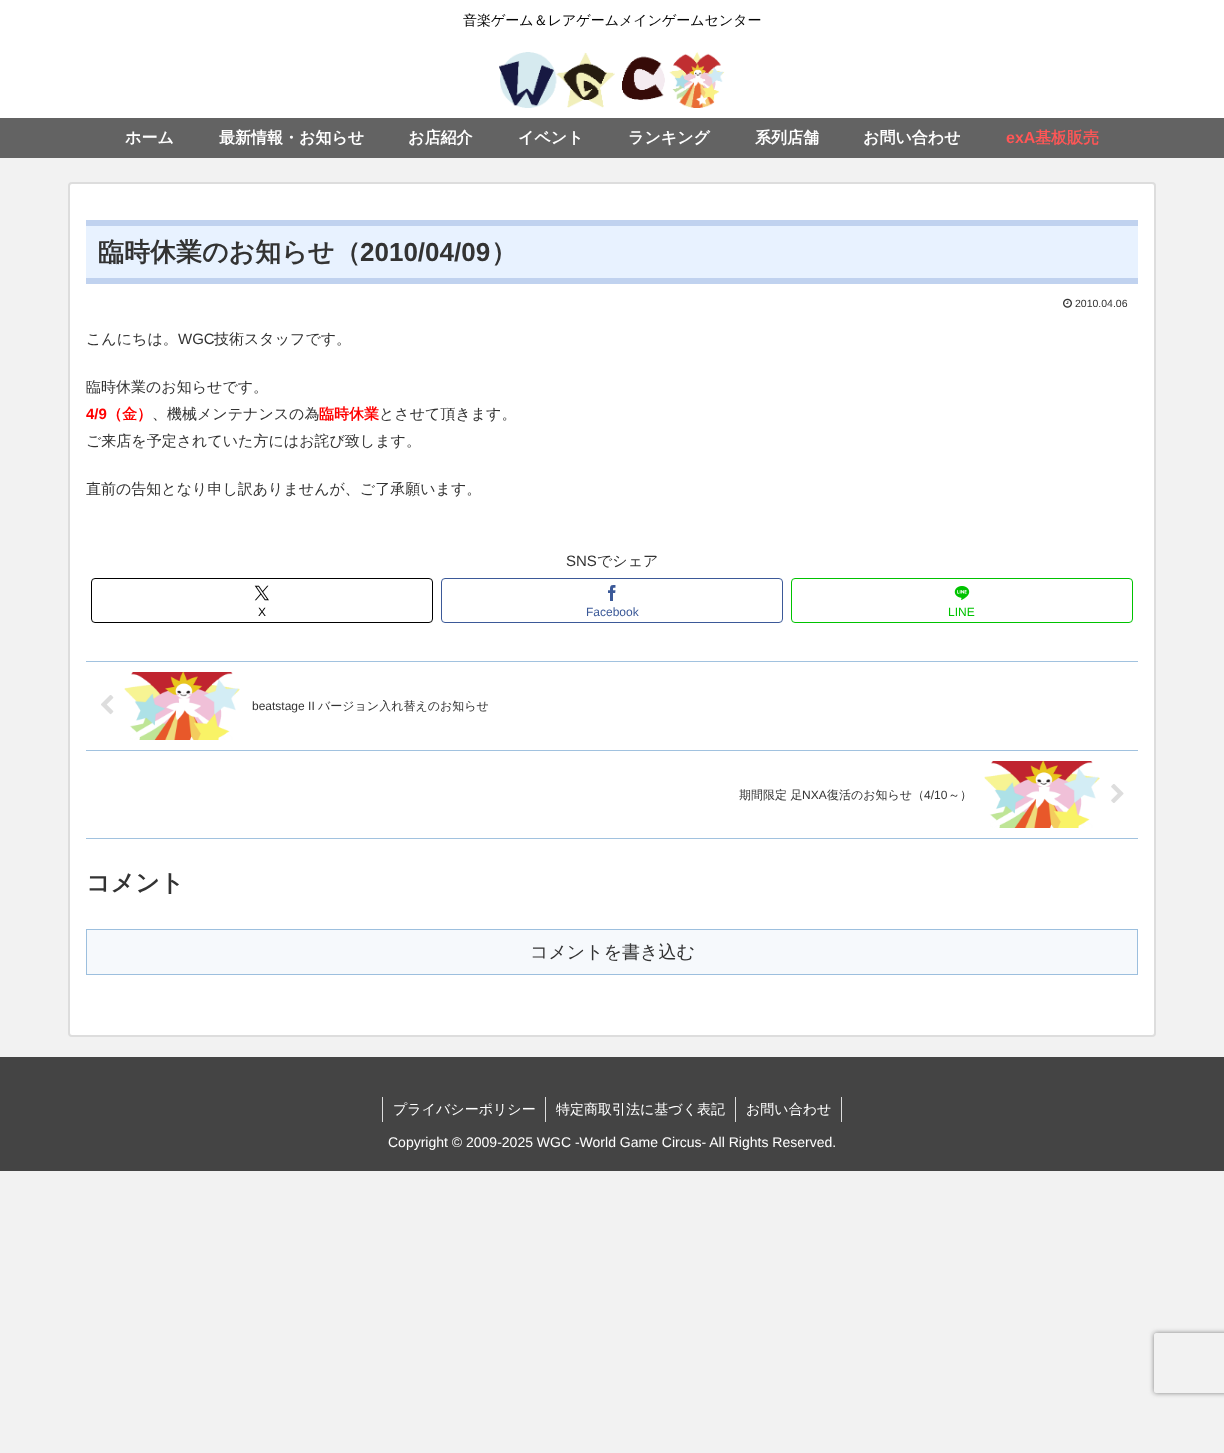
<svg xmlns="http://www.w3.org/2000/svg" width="1224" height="1453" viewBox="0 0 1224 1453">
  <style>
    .t1 { font: 500 14px WenQuanYi Zen Hei; fill: #020202; }
    .t2 { font: bold 16px WenQuanYi Zen Hei; fill: #fff; }
    .t3 { font: bold 16px Liberation Sans; fill: #ff5656; }
    .t4 { font: bold 16px WenQuanYi Zen Hei; fill: #ff5656; }
    .t5 { font: bold 26px WenQuanYi Zen Hei; fill: #333; }
    .t6 { font: bold 26px Liberation Sans; fill: #333; }
    .t7 { font: 10.5px Liberation Sans; fill: #333; }
    .t8 { font: 500 15px WenQuanYi Zen Hei; fill: #333; }
    .t9 { font: 15px Liberation Sans; fill: #333; }
    .t10 { font: bold 15px Liberation Sans; fill: #f00; }
    .t11 { font: bold 15px WenQuanYi Zen Hei; fill: #f00; }
    .t12 { font: 12px Liberation Sans; fill: #020202; }
    .t13 { font: 12px Liberation Sans; fill: #3b5998; }
    .t14 { font: 12px Liberation Sans; fill: #00c300; }
    .t15 { font: 12px Liberation Sans; fill: #333; }
    .t16 { font: 500 12px WenQuanYi Zen Hei; fill: #333; }
    .t17 { font: bold 24px WenQuanYi Zen Hei; fill: #333; }
    .t18 { font: 500 18px WenQuanYi Zen Hei; fill: #333; }
    .t19 { font: 500 14px WenQuanYi Zen Hei; fill: #fff; }
    .t20 { font: 14px Liberation Sans; fill: #fff; }
  </style>
  <defs>
    <clipPath id="clip1"><path d="M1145 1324H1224V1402H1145ZM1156 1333H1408C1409 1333 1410 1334 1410 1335V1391C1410 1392 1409 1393 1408 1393H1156C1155 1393 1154 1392 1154 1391V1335C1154 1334 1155 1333 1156 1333Z" clip-rule="evenodd"/></clipPath>
  </defs>
  <rect width="100%" height="100%" fill="#f2f2f2"/>
  <rect x="0" y="0" width="1224" height="118" fill="#fff"/>
  <text x="463" y="25" class="t1">音楽ゲーム＆レアゲームメインゲームセンター</text>
  <image x="499" y="52" width="226" height="56" href="images/1.png"/>
  <rect x="0" y="118" width="1224" height="40" fill="#636363"/>
  <text x="125" y="143" class="t2">ホーム</text>
  <text x="219" y="143" class="t2">最新情報・お知らせ</text>
  <text x="408" y="143" class="t2">お店紹介</text>
  <text x="518" y="143" class="t2">イベント</text>
  <text x="628" y="143" class="t2">ランキング</text>
  <text x="755" y="143" class="t2">系列店舗</text>
  <text x="863" y="143" class="t2">お問い合わせ</text>
  <text x="1006" y="143" class="t3">exA</text>
  <text x="1035" y="143" class="t4">基板販売</text>
  <rect x="69" y="183" width="1086" height="853" rx="3" fill="#fff" stroke="#ddd" stroke-width="2"/>
  <rect x="86" y="226" width="1052" height="52" fill="#e8f2ff"/>
  <rect x="86" y="220" width="1052" height="6" fill="#c0d2ef"/>
  <rect x="86" y="278" width="1052" height="6" fill="#c0d2ef"/>
  <text x="98" y="261" class="t5">臨時休業のお知らせ（</text>
  <text x="360" y="261" class="t6">2010/04/09</text>
  <text x="491" y="261" class="t5">）</text>
  <image x="1063" y="298" width="9" height="10" href="images/2.png"/>
  <text x="1075" y="307" class="t7">2010.04.06</text>
  <text x="86" y="344" class="t8">こんにちは。</text>
  <text x="178" y="344" class="t9">WGC</text>
  <text x="214" y="344" class="t8">技術スタッフです。</text>
  <text x="86" y="392" class="t8">臨時休業のお知らせです。</text>
  <text x="86" y="419" class="t10">4/9</text>
  <text x="107" y="419" class="t11">（金）</text>
  <text x="152" y="419" class="t8">、機械メンテナンスの為</text>
  <text x="319" y="419" class="t11">臨時休業</text>
  <text x="379" y="419" class="t8">とさせて頂きます。</text>
  <text x="86" y="446" class="t8">ご来店を予定されていた方にはお詫び致します。</text>
  <text x="86" y="494" class="t8">直前の告知となり申し訳ありませんが、ご了承願います。</text>
  <text x="566" y="566" class="t9">SNS</text>
  <text x="597" y="566" class="t8">でシェア</text>
  <rect x="91.5" y="578.5" width="341" height="44" rx="3.5" fill="none" stroke="#000"/>
  <image x="254" y="585" width="15" height="16" href="images/3.png"/>
  <text x="258" y="616" class="t12">X</text>
  <rect x="441.5" y="578.5" width="341" height="44" rx="3.5" fill="none" stroke="#3b5998"/>
  <image x="608" y="585" width="8" height="16" href="images/4.png"/>
  <text x="586" y="616" class="t13">Facebook</text>
  <rect x="791.5" y="578.5" width="341" height="44" rx="3.5" fill="none" stroke="#00c300"/>
  <image x="954" y="586" width="16" height="14" href="images/5.png"/>
  <text x="948" y="616" class="t14">LINE</text>
  <rect x="86" y="661" width="1052" height="1" fill="#a1c2df"/>
  <rect x="86" y="750" width="1052" height="1" fill="#a1c2df"/>
  <image x="101" y="695" width="13" height="20" href="images/6.png"/>
  <image x="124" y="672" width="116" height="68" href="images/7.png"/>
  <text x="252" y="710" class="t15">beatstage II</text>
  <text x="318" y="710" class="t16">バージョン入れ替えのお知らせ</text>
  <rect x="86" y="838" width="1052" height="1" fill="#a1c2df"/>
  <text x="739" y="799" class="t16">期間限定 足</text>
  <text x="802" y="799" class="t15">NXA</text>
  <text x="827" y="799" class="t16">復活のお知らせ（</text>
  <text x="924" y="799" class="t15">4/10</text>
  <text x="948" y="799" class="t16">～）</text>
  <image x="984" y="761" width="116" height="67" href="images/8.png"/>
  <image x="1111" y="784" width="13" height="19" href="images/9.png"/>
  <text x="86" y="891" class="t17">コメント</text>
  <rect x="86.5" y="929.5" width="1051" height="45" fill="#f6f9fc" stroke="#9cbfde"/>
  <text x="530" y="958" class="t18">コメントを書き込む</text>
  <rect x="0" y="1057" width="1224" height="114" fill="#444"/>
  <rect x="382" y="1097" width="1" height="25" fill="#ddd"/>
  <text x="393" y="1114" class="t19">プライバシーポリシー</text>
  <rect x="545" y="1097" width="1" height="25" fill="#ddd"/>
  <text x="556" y="1114" class="t19">特定商取引法に基づく表記</text>
  <rect x="841" y="1097" width="1" height="25" fill="#ddd"/>
  <rect x="735" y="1097" width="1" height="25" fill="#ddd"/>
  <text x="746" y="1114" class="t19">お問い合わせ</text>
  <text x="388" y="1147" class="t20">Copyright © 2009-2025 WGC -World Game Circus- All Rights Reserved.</text>
  <g clip-path="url(#clip1)">
    <rect x="1154" y="1333" width="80" height="60" rx="2" fill="#808080" filter="blur(2.5px)"/>
  </g>
</svg>
